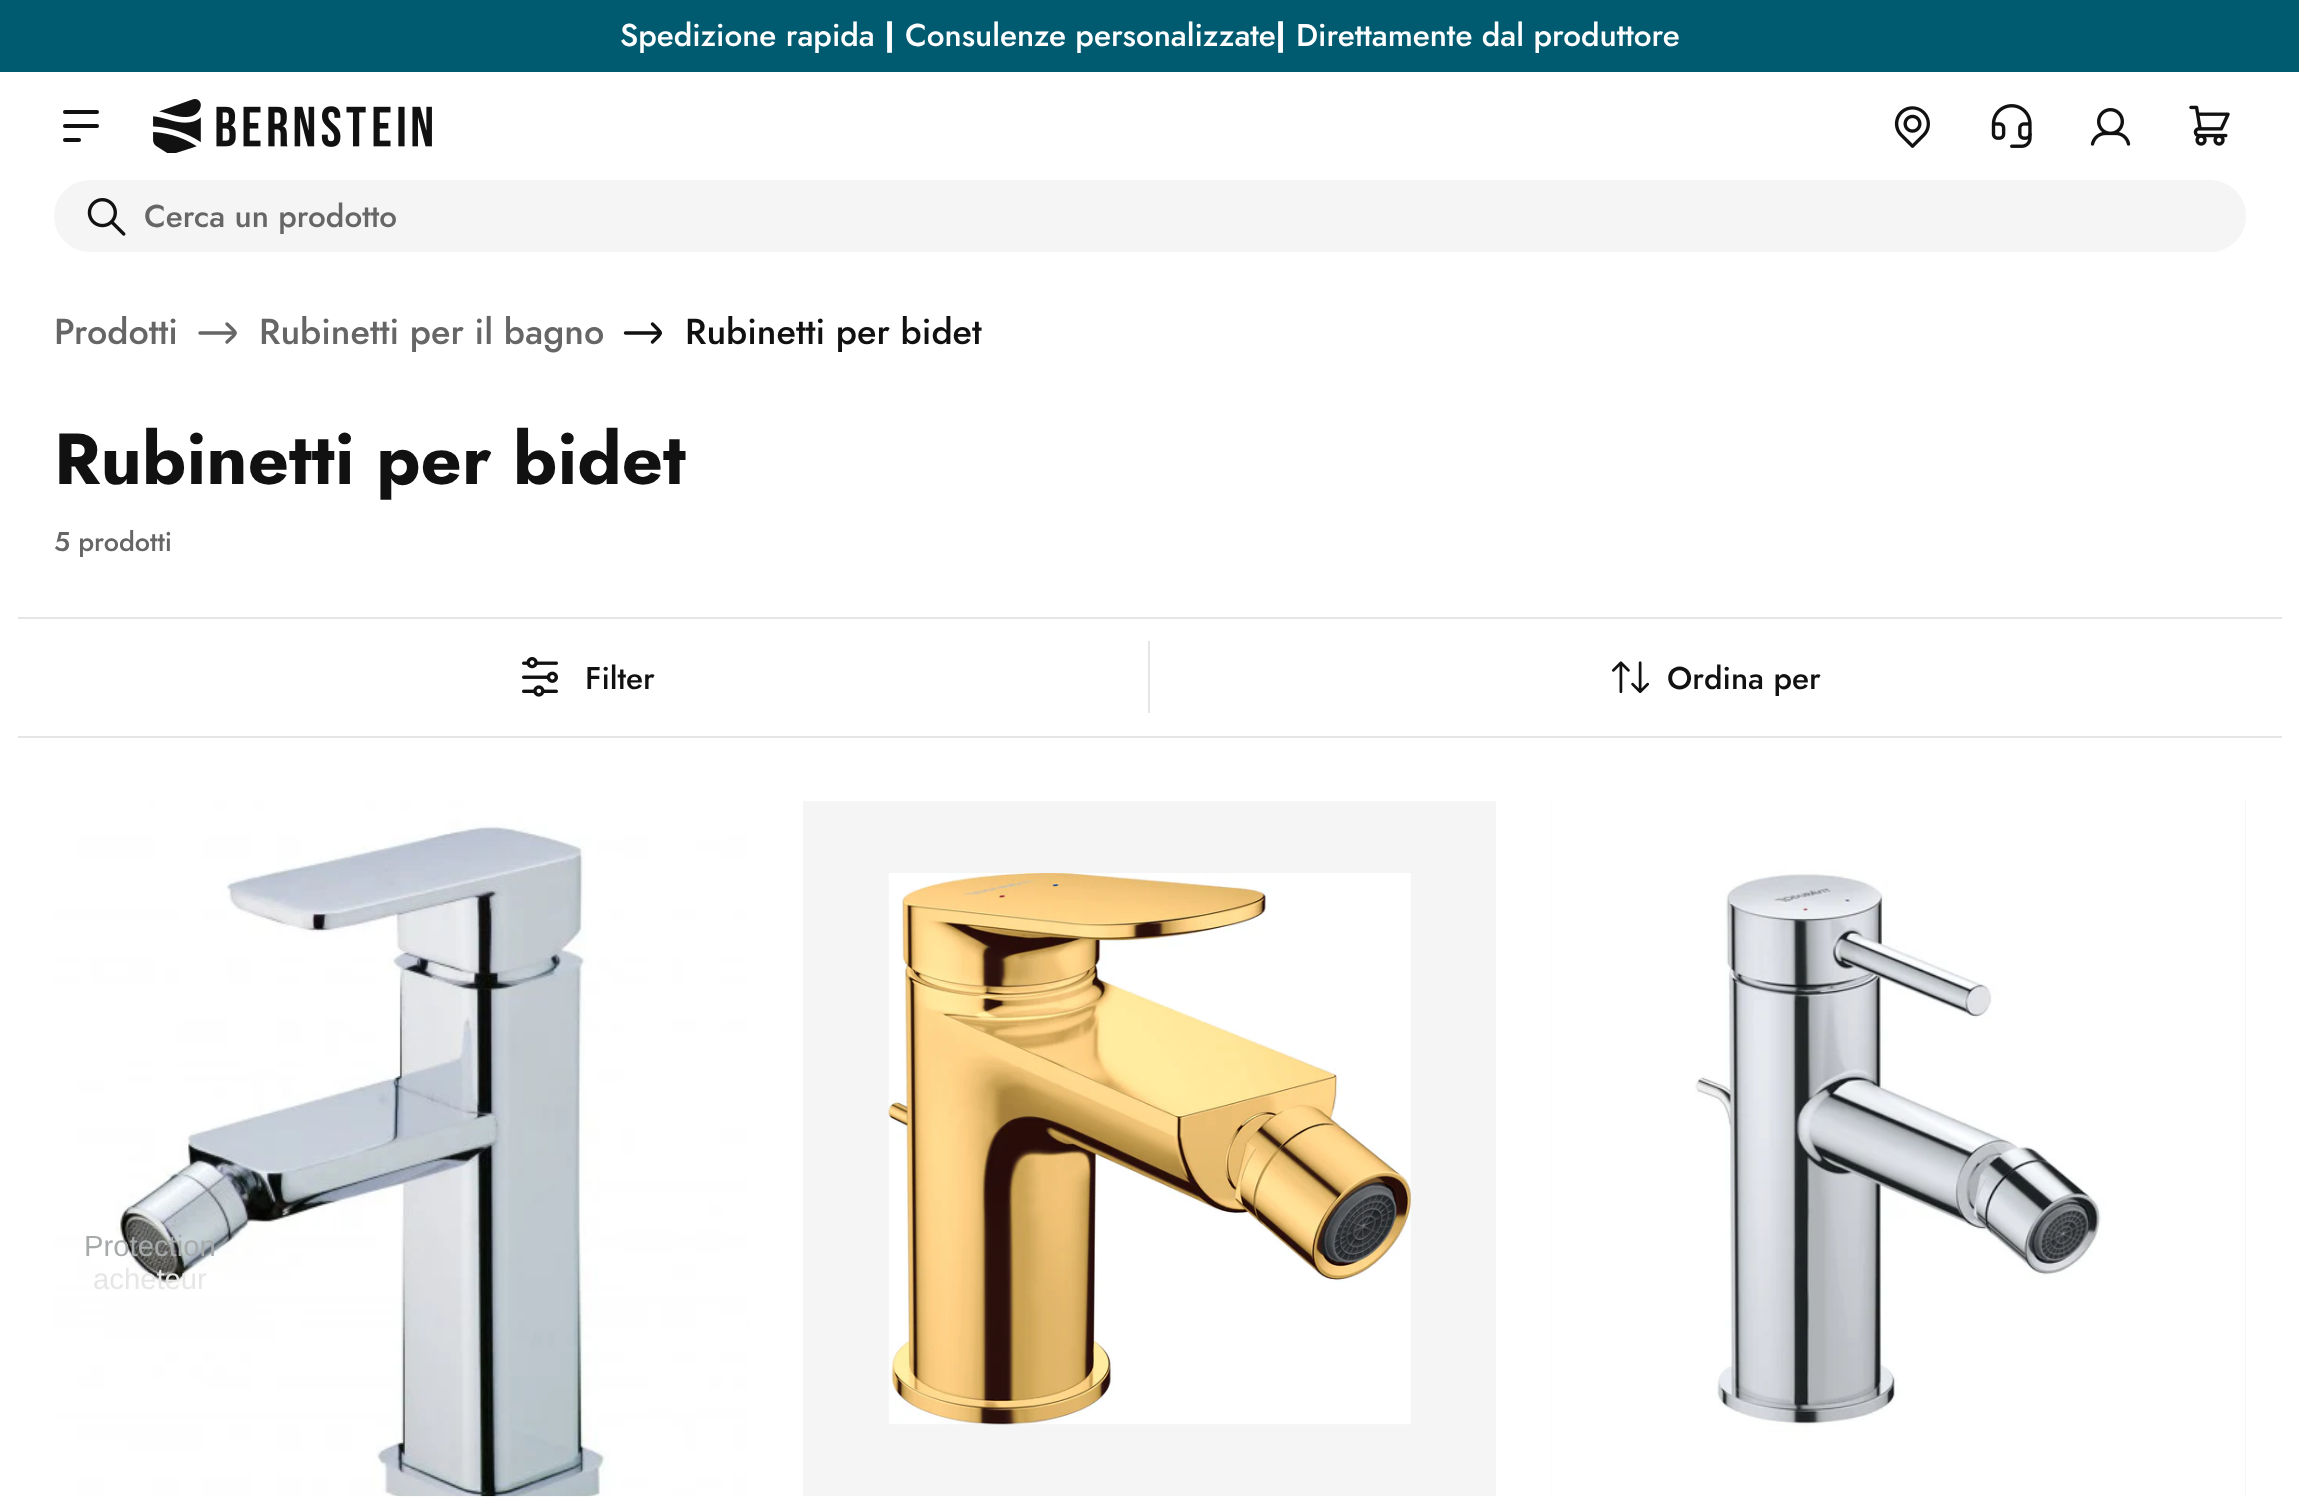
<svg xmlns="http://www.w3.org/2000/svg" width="2299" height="1505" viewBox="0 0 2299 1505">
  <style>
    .t1 { font: 500 31.5px Jost; fill: #fff; }
    .t2 { font: bold 31.5px Jost; fill: #fff; }
    .t3 { font: 500 31.5px Jost; fill: #666; }
    .t4 { font: 500 36px Jost; fill: #666; }
    .t5 { font: 500 36px Jost; fill: #111; }
    .t6 { font: bold 72px Jost; fill: #111; }
    .t7 { font: 500 27px Jost; fill: #666; }
    .t8 { font: 500 31.5px Jost; fill: #111; }
    .t9 { font: 29.25px Liberation Sans; fill: #a7aaab; }
    .t10 { font: 29.25px Liberation Sans; fill: #e6e6e6; }
  </style>
  <rect width="100%" height="100%" fill="#fff"/>
  <rect x="0" y="0" width="2299" height="72" fill="#005a70"/>
  <text x="620" y="46" class="t1">Spedizione rapida</text>
  <text x="884" y="46" class="t2">|</text>
  <text x="905" y="46" class="t1">Consulenze personalizzate</text>
  <text x="1275" y="46" class="t2">|</text>
  <text x="1296" y="46" class="t1">Direttamente dal produttore</text>
  <rect x="63" y="138" width="18" height="4" rx="2" fill="#111"/>
  <rect x="63" y="110" width="36" height="4" rx="2" fill="#111"/>
  <rect x="63" y="124" width="36" height="4" rx="2" fill="#111"/>
  <image x="153" y="99" width="279" height="54" href="images/1.png"/>
  <image x="1894" y="106" width="36" height="42" href="images/2.png"/>
  <image x="1991" y="104" width="41" height="44" href="images/3.png"/>
  <image x="2090" y="108" width="41" height="38" href="images/4.png"/>
  <image x="2189" y="105" width="41" height="41" href="images/5.png"/>
  <rect x="55" y="181" width="2190" height="70" rx="35" fill="#f5f5f5" stroke="#f5f5f5" stroke-width="2"/>
  <image x="87" y="198" width="39" height="38" href="images/6.png"/>
  <text x="144" y="227" class="t3">Cerca un prodotto</text>
  <text x="54" y="344" class="t4">Prodotti</text>
  <path d="M200 333H234M227 324C238 334.5 238 331.5 227 342" fill="none" stroke="#666" stroke-width="3.4" stroke-linecap="round" stroke-linejoin="round"/>
  <text x="259" y="344" class="t4">Rubinetti per il bagno</text>
  <path d="M625.5 333H659M652.5 324C663 334.5 663 331.5 652.5 342" fill="none" stroke="#111" stroke-width="3.4" stroke-linecap="round" stroke-linejoin="round"/>
  <text x="685" y="344" class="t5">Rubinetti per bidet</text>
  <text x="54" y="484" class="t6">Rubinetti per bidet</text>
  <text x="54" y="551" class="t7">5 prodotti</text>
  <rect x="18" y="617" width="2264" height="2" fill="#e5e5e5"/>
  <rect x="18" y="736" width="2264" height="2" fill="#e5e5e5"/>
  <image x="522" y="657" width="36" height="40" href="images/7.png"/>
  <text x="585" y="689" class="t8">Filter</text>
  <rect x="1148" y="641" width="2" height="72" fill="#e5e5e5"/>
  <image x="1612" y="661" width="37" height="33" href="images/8.png"/>
  <text x="1667" y="689" class="t8">Ordina per</text>
  <image x="54" y="801" width="695" height="696" href="images/9.png"/>
  <rect x="803" y="801" width="693" height="695" fill="#f5f5f5"/>
  <image x="888" y="873" width="523" height="552" href="images/10.png"/>
  <rect x="1550" y="801" width="696" height="695" fill="#f5f5f5"/>
  <image x="1550" y="801" width="695" height="695" href="images/11.png"/>
  <text x="84" y="1256" class="t9">Protection</text>
  <text x="93" y="1289" class="t10">acheteur</text>
</svg>
